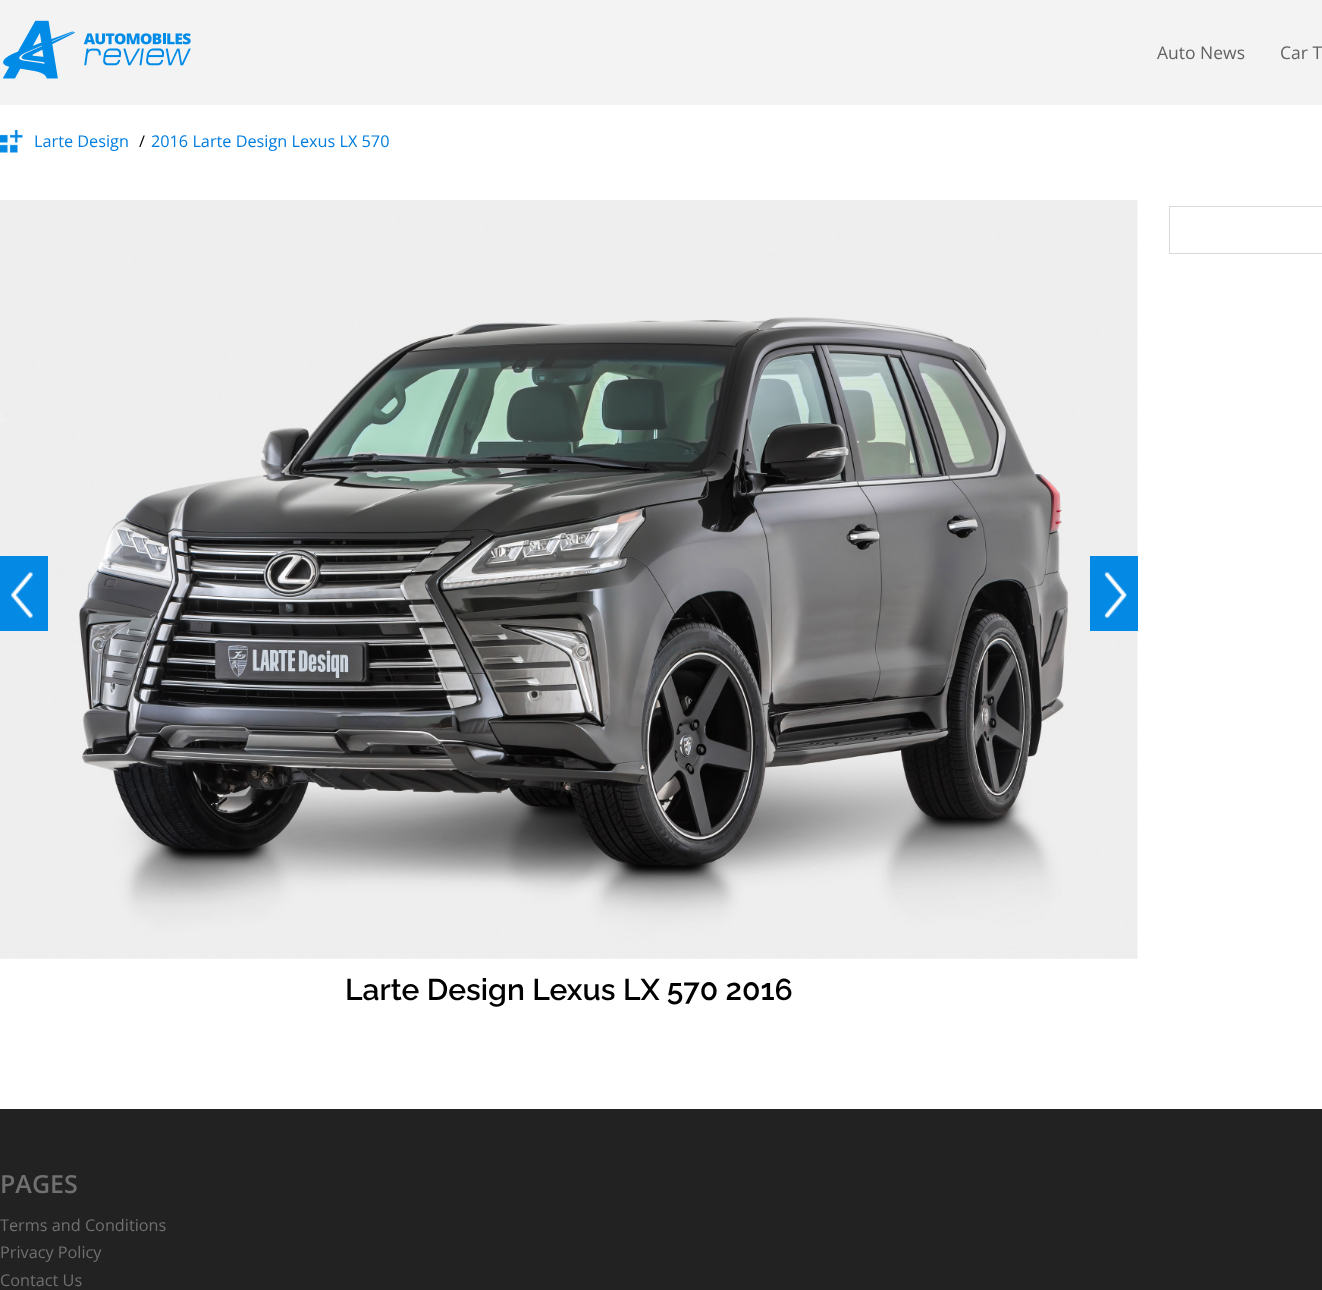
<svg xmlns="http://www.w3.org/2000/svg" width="1322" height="1290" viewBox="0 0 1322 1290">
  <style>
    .t1 { font: 17.5px Open Sans; fill: #626262; }
    .t2 { font: 16.25px Open Sans; fill: #007ee0; }
    .t3 { font: 16.25px Open Sans; fill: #000; }
    .t4 { font: 600 30px Raleway; fill: #000; }
    .t5 { font: 600 25px Open Sans; fill: #707070; }
    .t6 { font: 16.25px Open Sans; fill: #707070; }
  </style>
  <rect width="100%" height="100%" fill="#fff"/>
  <rect x="0" y="0" width="1322" height="105" fill="#f3f3f3"/>
  <image x="2" y="20" width="189" height="59" href="images/1.png"/>
  <text x="1157" y="59" class="t1">Auto News</text>
  <text x="1280" y="59" class="t1">Car T</text>
  <image x="0" y="130" width="23" height="23" href="images/2.png"/>
  <text x="34" y="147" class="t2">Larte Design</text>
  <text x="139" y="147" class="t3">/</text>
  <text x="151" y="147" class="t2">2016 Larte Design Lexus LX 570</text>
  <rect x="1169.5" y="206.5" width="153" height="47" fill="none" stroke="#d9d9d9"/>
  <image x="0" y="200" width="1138" height="759" href="images/5.png"/>
  <rect x="0" y="556" width="48" height="75" fill="#0489e4"/>
  <image x="11" y="572" width="22" height="46" href="images/3.png"/>
  <rect x="1090" y="556" width="48" height="75" fill="#0489e4"/>
  <image x="1104" y="572" width="23" height="46" href="images/4.png"/>
  <text x="345" y="1000" class="t4">Larte Design Lexus LX 570 2016</text>
  <rect x="0" y="1109" width="1322" height="181" fill="#222"/>
  <text x="0" y="1193" class="t5">PAGES</text>
  <text x="0" y="1231" class="t6">Terms and Conditions</text>
  <text x="0" y="1258" class="t6">Privacy Policy</text>
  <text x="0" y="1286" class="t6">Contact Us</text>
</svg>
